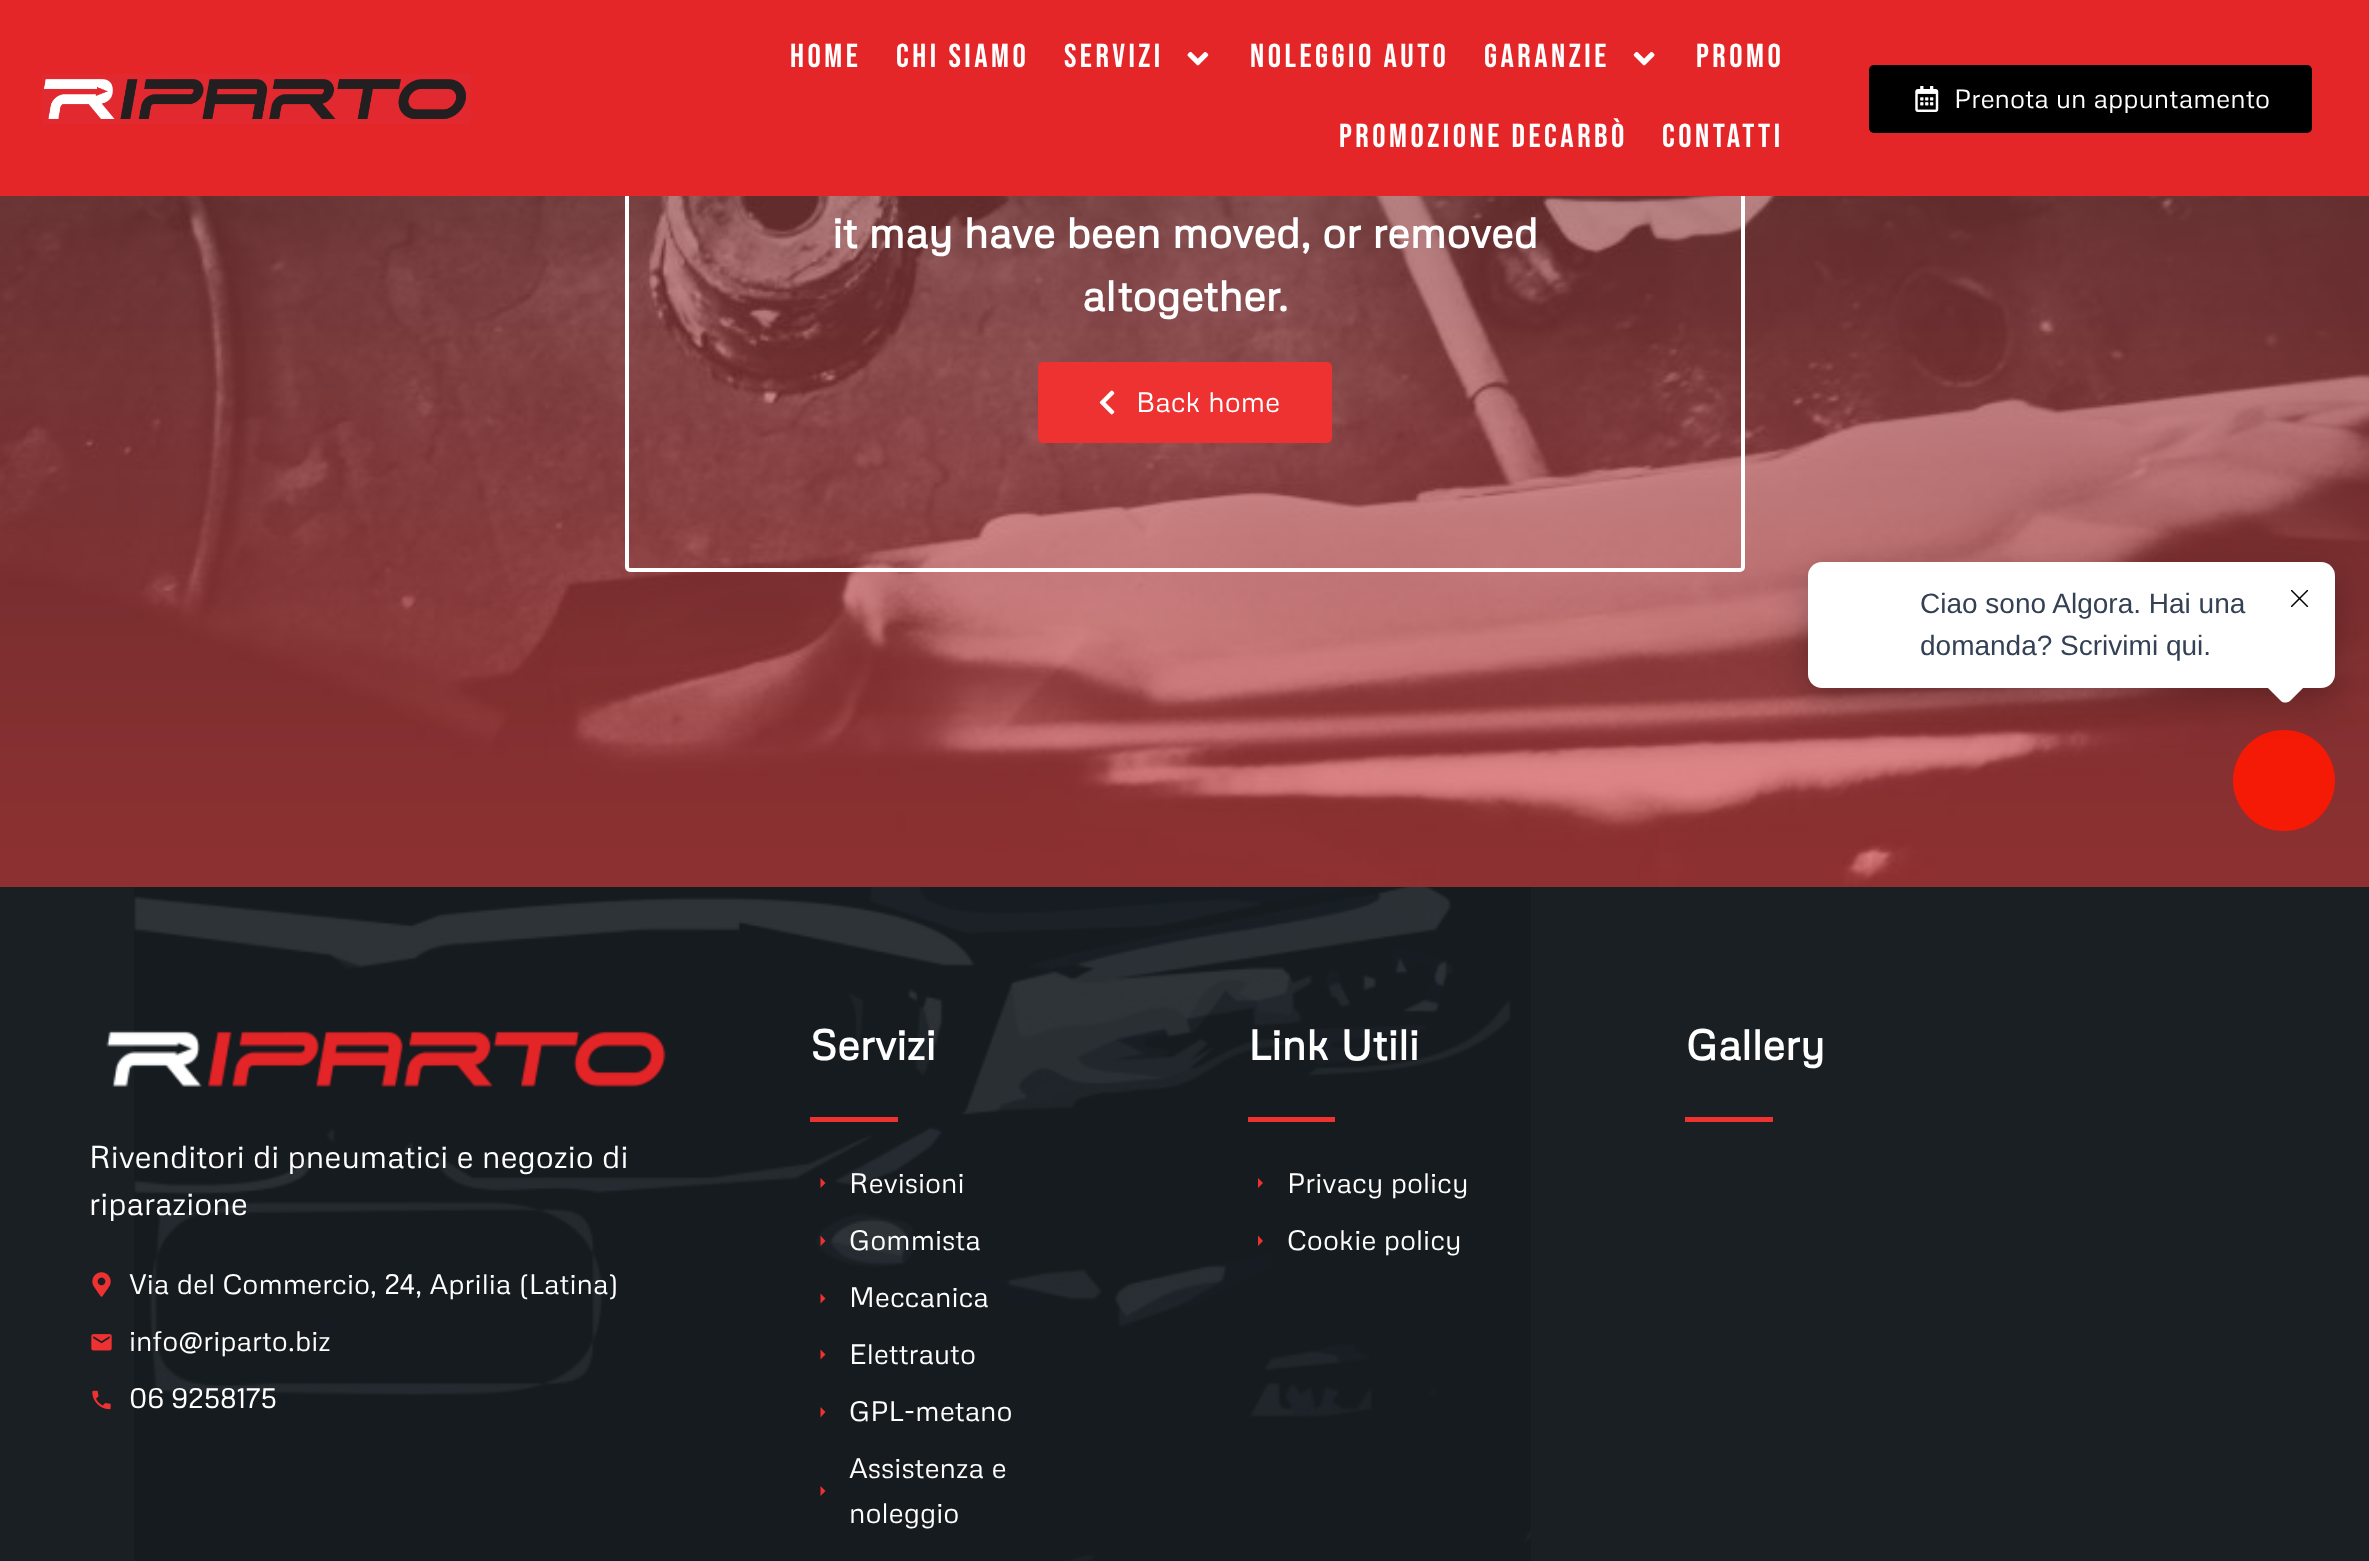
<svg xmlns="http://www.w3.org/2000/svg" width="2369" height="1561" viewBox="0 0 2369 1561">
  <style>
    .t1 { font: 33.25px Bebas Neue; letter-spacing: 3.5px; fill: #fff; }
    .t2 { font: 26.25px Metrophobic; fill: #fff; }
    .t3 { font: bold 42px Metrophobic; fill: #fff; }
    .t4 { font: 28px Metrophobic; fill: #fff; }
    .t5 { font: 28px Liberation Sans; fill: #344054; }
    .t6 { font: 31.5px Metrophobic; fill: #fff; }
  </style>
  <rect width="100%" height="100%" fill="#fff"/>
  <image x="0" y="196" width="2369" height="691" href="images/5.png"/>
  <rect x="627" y="-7" width="1116" height="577" rx="3" fill="none" stroke="#fff" stroke-width="4"/>
  <rect x="0" y="0" width="2369" height="196" fill="#e52628"/>
  <image x="42" y="74" width="429" height="50" href="images/1.png"/>
  <text x="790" y="67" class="t1">HOME</text>
  <text x="896" y="67" class="t1">CHI SIAMO</text>
  <text x="1064" y="67" class="t1">SERVIZI</text>
  <image x="1187" y="51" width="22" height="15" href="images/2.png"/>
  <text x="1250" y="67" class="t1">NOLEGGIO AUTO</text>
  <text x="1484" y="67" class="t1">GARANZIE</text>
  <image x="1633" y="51" width="22" height="15" href="images/3.png"/>
  <text x="1696" y="67" class="t1">PROMO</text>
  <text x="1339" y="147" class="t1">PROMOZIONE DECARBÒ</text>
  <text x="1662" y="147" class="t1">CONTATTI</text>
  <rect x="1869" y="65" width="443" height="68" rx="5" fill="#000"/>
  <image x="1915" y="86" width="24" height="26" href="images/4.png"/>
  <text x="1954" y="108" class="t2">Prenota un appuntamento</text>
  <text x="832" y="248" class="t3">it may have been moved, or removed</text>
  <text x="1082" y="311" class="t3">altogether.</text>
  <rect x="1038" y="362" width="294" height="81" rx="5" fill="#ee3131"/>
  <image x="1099" y="390" width="16" height="25" href="images/6.png"/>
  <text x="1136" y="412" class="t4">Back home</text>
  <rect x="2233" y="730" width="102" height="101" rx="50.5" fill="#f51a06"/>
  <rect x="1808" y="576" width="527" height="126" rx="14" fill="#0000003d" filter="blur(17.5px)"/>
  <rect x="1808" y="562" width="527" height="126" rx="14" fill="#fff"/>
  <text x="1920" y="613" class="t5">Ciao sono Algora. Hai una</text>
  <text x="1920" y="655" class="t5">domanda? Scrivimi qui.</text>
  <path d="M2290 661L2305 676C2308 679 2308 683 2305 686L2290 701C2288 703 2283 703 2281 701L2266 686C2263 683 2263 679 2266 676L2281 661C2283 658 2288 658 2290 661Z" fill="#fff"/>
  <image x="2291" y="590" width="17" height="17" href="images/7.png"/>
  <rect x="0" y="887" width="2369" height="674" fill="#191f23"/>
  <image x="134" y="887" width="1397" height="674" href="images/8.png"/>
  <image x="106" y="1030" width="560" height="57" href="images/9.png"/>
  <text x="89" y="1168" class="t6">Rivenditori di pneumatici e negozio di</text>
  <text x="89" y="1215" class="t6">riparazione</text>
  <image x="92" y="1272" width="19" height="25" href="images/10.png"/>
  <text x="129" y="1294" class="t4">Via del Commercio, 24, Aprilia (Latina)</text>
  <image x="91" y="1334" width="21" height="17" href="images/11.png"/>
  <text x="129" y="1351" class="t4">info@riparto.biz</text>
  <image x="92" y="1390" width="19" height="20" href="images/12.png"/>
  <text x="129" y="1408" class="t4">06 9258175</text>
  <text x="810" y="1060" class="t3">Servizi</text>
  <rect x="810" y="1117" width="88" height="5" fill="#ee3131"/>
  <path d="M820.5 1188V1178L825.5 1183Z" fill="#ee3131"/>
  <text x="849" y="1193" class="t4">Revisioni</text>
  <path d="M820.5 1246V1235.5L825.5 1241Z" fill="#ee3131"/>
  <text x="849" y="1250" class="t4">Gommista</text>
  <path d="M820.5 1303.5V1293.5L825.5 1298.5Z" fill="#ee3131"/>
  <text x="849" y="1307" class="t4">Meccanica</text>
  <path d="M820.5 1359.5V1349.5L825.5 1354.5Z" fill="#ee3131"/>
  <text x="849" y="1364" class="t4">Elettrauto</text>
  <path d="M820.5 1417.5V1407L825.5 1412Z" fill="#ee3131"/>
  <text x="849" y="1421" class="t4">GPL-metano</text>
  <path d="M820.5 1496V1486L825.5 1491Z" fill="#ee3131"/>
  <text x="849" y="1478" class="t4">Assistenza e</text>
  <text x="849" y="1523" class="t4">noleggio</text>
  <text x="1248" y="1060" class="t3">Link Utili</text>
  <rect x="1248" y="1117" width="87" height="5" fill="#ee3131"/>
  <path d="M1258 1188V1178L1263 1183Z" fill="#ee3131"/>
  <text x="1287" y="1193" class="t4">Privacy policy</text>
  <path d="M1258 1246V1235.5L1263 1241Z" fill="#ee3131"/>
  <text x="1287" y="1250" class="t4">Cookie policy</text>
  <text x="1686" y="1060" class="t3">Gallery</text>
  <rect x="1685" y="1117" width="88" height="5" fill="#ee3131"/>
</svg>
